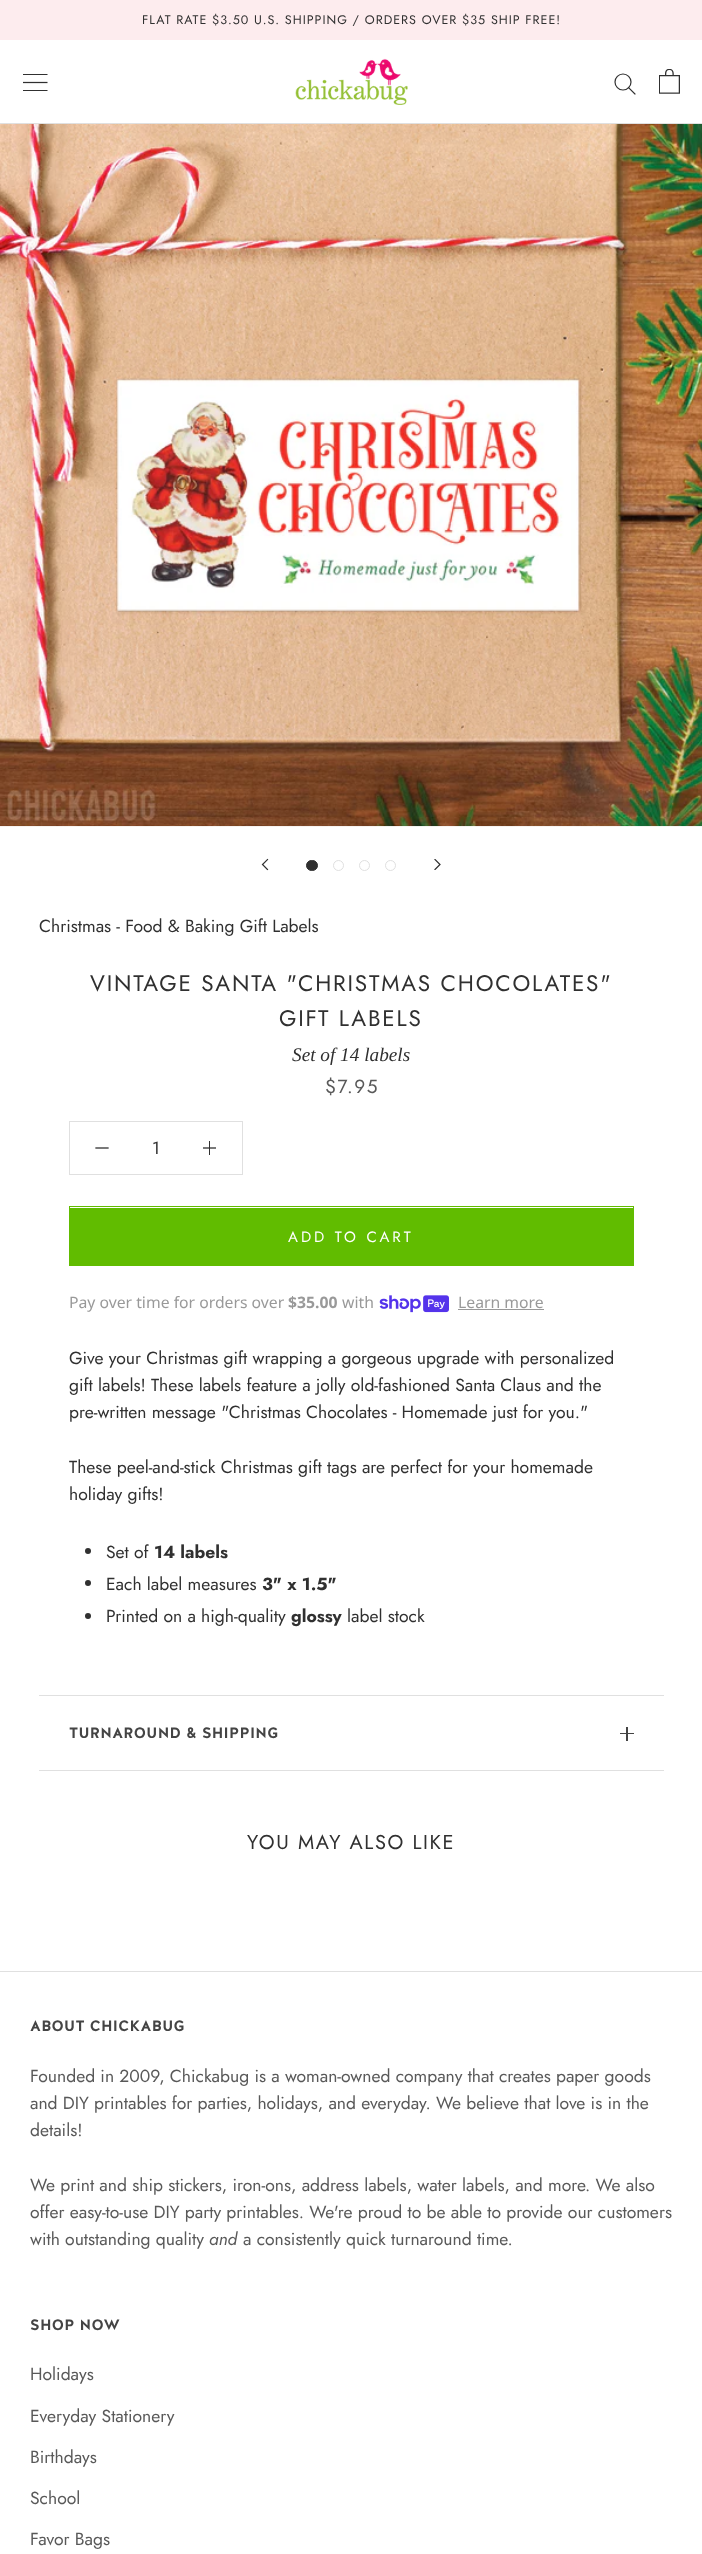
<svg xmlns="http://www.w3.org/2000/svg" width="702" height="2554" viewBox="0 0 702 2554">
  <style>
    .t1 { font: 12.5px Jost; letter-spacing: 1px; fill: #303030; }
    .t2 { font: 17.5px Jost; fill: #303030; }
    .t3 { font: 22.5px Jost; letter-spacing: 1.8px; fill: #303030; }
    .t4 { font: italic 19.25px Liberation Serif; fill: #303030; }
    .t5 { font: 19px Jost; letter-spacing: 1.5px; fill: #595959; }
    .t6 { font: 15px Jost; letter-spacing: 3px; fill: #fff; }
    .t7 { font: 15.75px Noto Sans; fill: #999; }
    .t8 { font: bold 15.75px Noto Sans; fill: #999; }
    .t9 { font: bold 17.5px Jost; fill: #303030; }
    .t10 { font: bold 15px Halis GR; letter-spacing: 0.3px; fill: #444; }
    .t11 { font: 20px Jost; letter-spacing: 1.6px; fill: #303030; }
    .t12 { font: 17.5px Jost; fill: #595959; }
    .t13 { font: italic 17.5px Jost; fill: #595959; }
  </style>
  <defs>
    <clipPath id="clip1"><rect x="434" y="859" width="7" height="11"/></clipPath>
    <clipPath id="clip2"><rect x="203" y="1141" width="13" height="14"/></clipPath>
  </defs>
  <rect width="100%" height="100%" fill="#fff"/>
  <rect x="0" y="0" width="702" height="40" fill="#fdecee"/>
  <text x="142" y="24" class="t1">FLAT RATE $3.50 U.S. SHIPPING / ORDERS OVER $35 SHIP FREE!</text>
  <rect x="0" y="123" width="702" height="1" fill="#e0e0e0"/>
  <image x="23" y="74" width="25" height="17" href="images/1.png"/>
  <image x="295" y="58" width="113" height="47" href="images/2.png"/>
  <path d="M635 94L628.5 87.5" fill="none" stroke="#303030" stroke-width="1.2" stroke-linecap="square"/>
  <circle cx="623" cy="82" r="8" fill="none" stroke="#303030" stroke-width="1.2"/>
  <image x="659" y="69" width="21" height="25" href="images/3.png"/>
  <image x="0" y="124" width="702" height="703" href="images/4.png"/>
  <path d="M267.5 869.5L262.5 864.5L267.5 859.5" fill="none" stroke="#303030" stroke-width="1.2" stroke-linecap="square"/>
  <rect x="306.5" y="860.5" width="11" height="10" rx="5" fill="#303030" stroke="#303030"/>
  <circle cx="338.5" cy="865.5" r="5" fill="none" stroke="#e0e0e0"/>
  <circle cx="364.5" cy="865.5" r="5" fill="none" stroke="#e0e0e0"/>
  <circle cx="390.5" cy="865.5" r="5" fill="none" stroke="#e0e0e0"/>
  <g clip-path="url(#clip1)">
    <path d="M435 869.5L440 864.5L435 859.5" fill="none" stroke="#303030" stroke-width="1.2" stroke-linecap="square"/>
  </g>
  <text x="39" y="932" class="t2">Christmas - Food &amp; Baking Gift Labels</text>
  <text x="90" y="991" class="t3">VINTAGE SANTA "CHRISTMAS CHOCOLATES"</text>
  <text x="279" y="1026" class="t3">GIFT LABELS</text>
  <text x="292" y="1061" class="t4">Set of 14 labels</text>
  <text x="325" y="1093" class="t5">$7.95</text>
  <rect x="69.5" y="1121.5" width="173" height="53" fill="none" stroke="#e0e0e0"/>
  <path d="M96 1148H108" fill="none" stroke="#303030" stroke-width="1.3" stroke-linecap="square"/>
  <text x="152" y="1154" class="t2">1</text>
  <rect x="209" y="1141" width="1" height="14" fill="#303030"/>
  <g clip-path="url(#clip2)">
    <path d="M203.5 1148H215.5" fill="none" stroke="#303030" stroke-width="1.3" stroke-linecap="square"/>
  </g>
  <rect x="69.5" y="1206.5" width="564" height="59" fill="none" stroke="#61bc00"/>
  <rect x="70" y="1208" width="563" height="57" fill="#61bc00"/>
  <text x="288" y="1242" class="t6">ADD TO CART</text>
  <text x="69" y="1308" class="t7">Pay over time for orders over</text>
  <text x="288" y="1308" class="t8">$35.00</text>
  <text x="342" y="1308" class="t7">with</text>
  <image x="379" y="1295" width="70" height="18" href="images/5.png"/>
  <text x="458" y="1308" class="t7">Learn more</text>
  <rect x="458" y="1309" width="86" height="1" fill="#999"/>
  <text x="69" y="1364" class="t2">Give your Christmas gift wrapping a gorgeous upgrade with personalized</text>
  <text x="69" y="1391" class="t2">gift labels! These labels feature a jolly old-fashioned Santa Claus and the</text>
  <text x="69" y="1418" class="t2">pre-written message "Christmas Chocolates - Homemade just for you."</text>
  <text x="69" y="1473" class="t2">These peel-and-stick Christmas gift tags are perfect for your homemade</text>
  <text x="69" y="1500" class="t2">holiday gifts!</text>
  <circle cx="88" cy="1551" r="3" fill="#303030"/>
  <text x="106" y="1558" class="t2">Set of</text>
  <text x="154" y="1558" class="t9">14 labels</text>
  <circle cx="88" cy="1583" r="3" fill="#303030"/>
  <text x="106" y="1590" class="t2">Each label measures</text>
  <text x="262" y="1590" class="t9">3" x 1.5"</text>
  <circle cx="88" cy="1616" r="3" fill="#303030"/>
  <text x="106" y="1622" class="t2">Printed on a high-quality</text>
  <text x="291" y="1622" class="t9">glossy</text>
  <text x="347" y="1622" class="t2">label stock</text>
  <rect x="39" y="1695" width="625" height="1" fill="#e0e0e0"/>
  <rect x="39" y="1770" width="625" height="1" fill="#e0e0e0"/>
  <text x="69" y="1738" class="t10">TURNAROUND &amp; SHIPPING</text>
  <rect x="626" y="1727" width="2" height="14" fill="#444"/>
  <rect x="620" y="1733" width="14" height="1" fill="#444"/>
  <text x="247" y="1849" class="t11">YOU MAY ALSO LIKE</text>
  <rect x="0" y="1971" width="702" height="1" fill="#e0e0e0"/>
  <text x="30" y="2031" class="t10">ABOUT CHICKABUG</text>
  <text x="30" y="2082" class="t12">Founded in 2009, Chickabug is a woman-owned company that creates paper goods</text>
  <text x="30" y="2109" class="t12">and DIY printables for parties, holidays, and everyday. We believe that love is in the</text>
  <text x="30" y="2136" class="t12">details!</text>
  <text x="30" y="2191" class="t12">We print and ship stickers, iron-ons, address labels, water labels, and more. We also</text>
  <text x="30" y="2218" class="t12">offer easy-to-use DIY party printables. We're proud to be able to provide our customers</text>
  <text x="30" y="2245" class="t12">with outstanding quality</text>
  <text x="209" y="2245" class="t13">and</text>
  <text x="243" y="2245" class="t12">a consistently quick turnaround time.</text>
  <text x="30" y="2330" class="t10">SHOP NOW</text>
  <text x="30" y="2380" class="t12">Holidays</text>
  <text x="30" y="2422" class="t12">Everyday Stationery</text>
  <text x="30" y="2463" class="t12">Birthdays</text>
  <text x="30" y="2504" class="t12">School</text>
  <text x="30" y="2545" class="t12">Favor Bags</text>
</svg>
